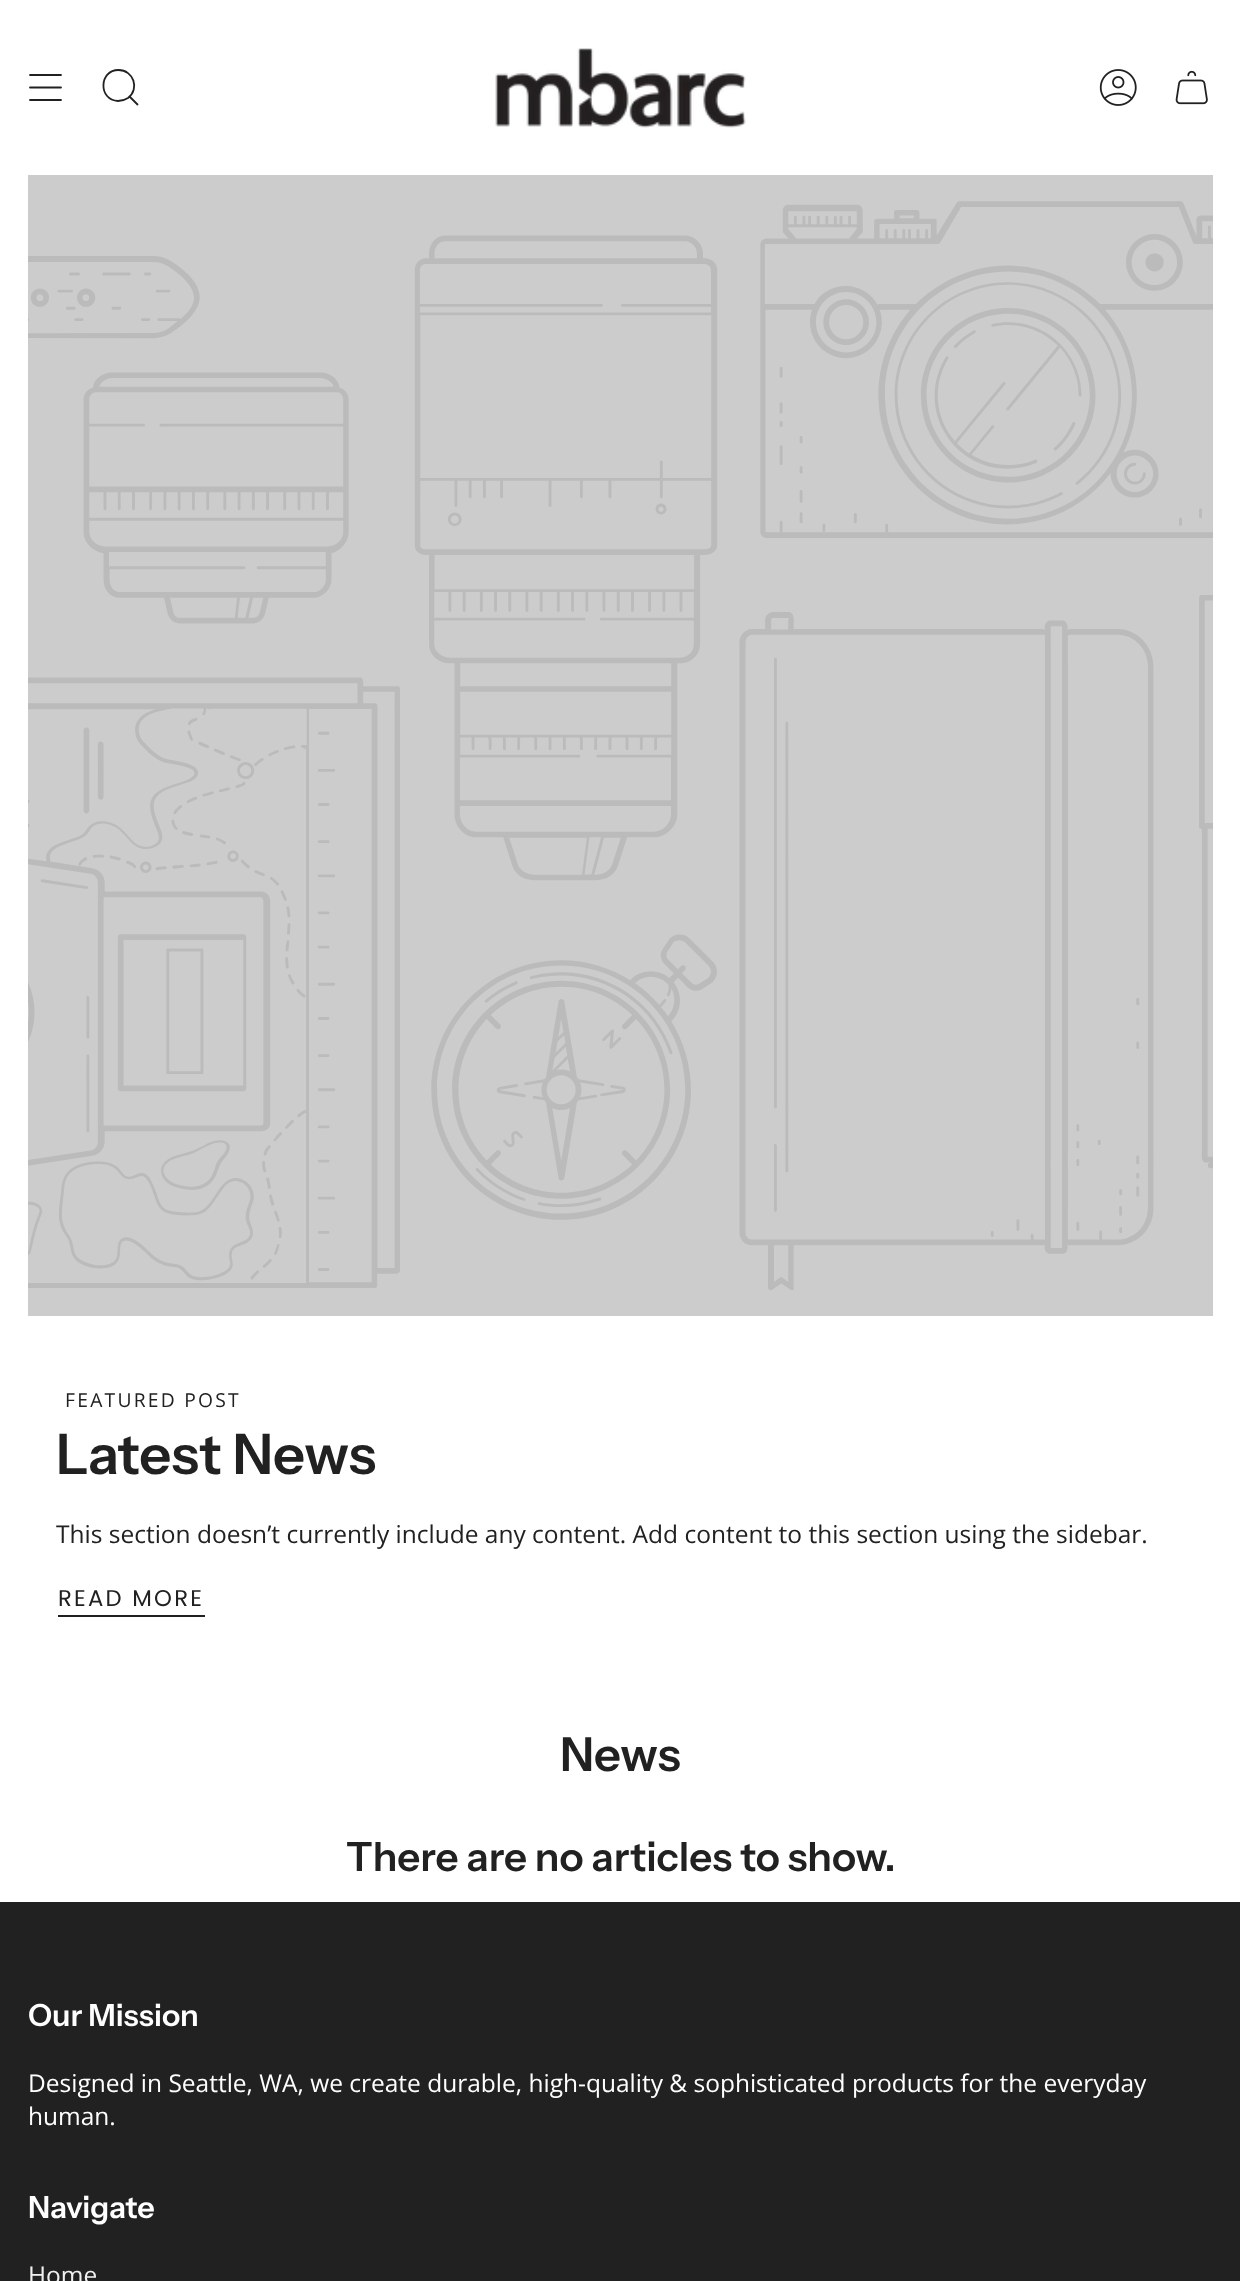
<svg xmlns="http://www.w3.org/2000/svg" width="1240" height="2281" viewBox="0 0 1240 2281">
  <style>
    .t1 { font: 19.25px Open Sans; letter-spacing: 2.25px; fill: #212121; }
    .t2 { font: 600 56px Instrument Sans; fill: #212121; }
    .t3 { font: 24.5px Open Sans; fill: #212121; }
    .t4 { font: 22.75px Poppins; letter-spacing: 2.25px; fill: #212121; }
    .t5 { font: 600 47px Instrument Sans; fill: #212121; }
    .t6 { font: 600 40.25px Instrument Sans; fill: #212121; }
    .t7 { font: 600 30.5px Instrument Sans; fill: #fff; }
    .t8 { font: 24.5px Open Sans; fill: #fff; }
    .t9 { font: 24.5px Open Sans; fill: #f0f0f0; }
  </style>
  <rect width="100%" height="100%" fill="#fff"/>
  <path d="M30 75H61M30 87.5H61M30 100H61" fill="none" stroke="#212121" stroke-width="1.8" stroke-linecap="round" stroke-linejoin="round"/>
  <path d="M118.5 70C133.5 70 140 89 128 98C125 100 121.5 101 118 101C98 100 99 70 118.5 70ZM129.5 96.5L138 105" fill="none" stroke="#212121" stroke-width="1.8"/>
  <image x="495" y="48" width="251" height="80" href="images/1.png"/>
  <image x="1099" y="69" width="38" height="37" href="images/2.png"/>
  <image x="1175" y="70" width="33" height="35" href="images/3.png"/>
  <image x="28" y="175" width="1185" height="1141" href="images/4.png"/>
  <text x="65" y="1407" class="t1">FEATURED POST</text>
  <text x="56" y="1474" class="t2">Latest News</text>
  <text x="56" y="1543" class="t3">This section doesn’t currently include any content. Add content to this section using the sidebar.</text>
  <text x="58" y="1606" class="t4">READ MORE</text>
  <rect x="58" y="1615" width="147" height="2" fill="#212121"/>
  <text x="560" y="1771" class="t5">News</text>
  <text x="346" y="1871" class="t6">There are no articles to show.</text>
  <rect x="0" y="1902" width="1240" height="379" fill="#212121"/>
  <text x="28" y="2026" class="t7">Our Mission</text>
  <text x="28" y="2092" class="t8">Designed in Seattle, WA, we create durable, high-quality &amp; sophisticated products for the everyday</text>
  <text x="28" y="2125" class="t8">human.</text>
  <text x="28" y="2218" class="t7">Navigate</text>
  <text x="28" y="2284" class="t9">Home</text>
</svg>
